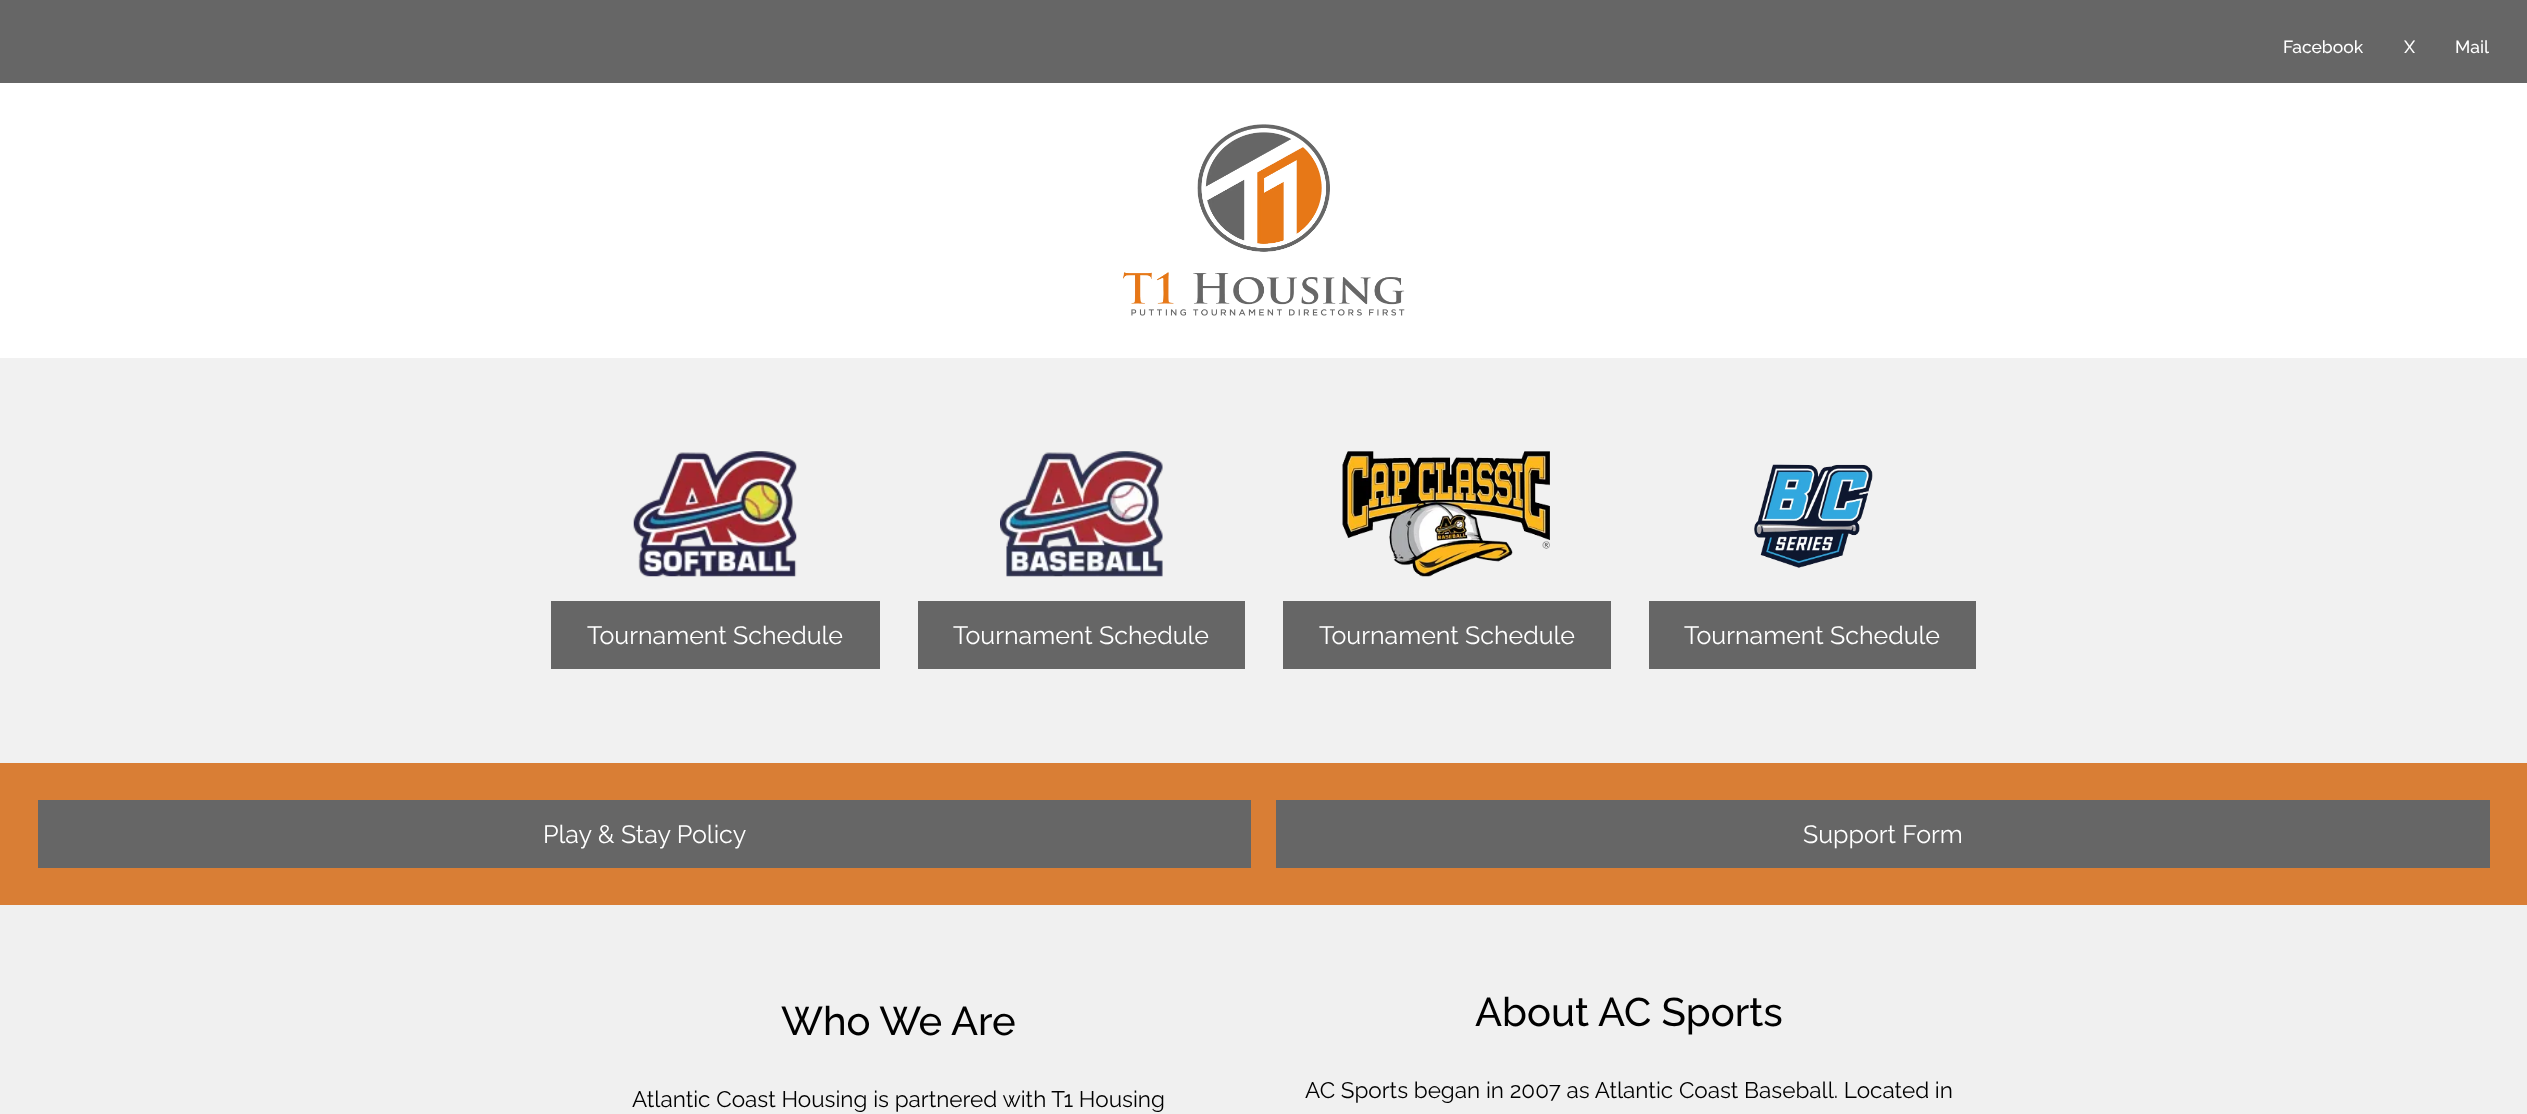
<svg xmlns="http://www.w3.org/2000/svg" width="2527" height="1114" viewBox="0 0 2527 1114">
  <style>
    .t1 { font: 500 17.5px Raleway; fill: #fff; }
    .t2 { font: 25px Raleway; fill: #fff; }
    .t3 { font: 500 40px Raleway; fill: #000; }
    .t4 { font: 22.5px Raleway; fill: #000; }
  </style>
  <rect width="100%" height="100%" fill="#fff"/>
  <rect x="0" y="0" width="2527" height="83" fill="#666"/>
  <text x="2283" y="53" class="t1">Facebook</text>
  <text x="2404" y="53" class="t1">X</text>
  <text x="2455" y="53" class="t1">Mail</text>
  <image x="1123" y="124" width="282" height="192" href="images/1.png"/>
  <rect x="0" y="358" width="2527" height="405" fill="#f1f1f1"/>
  <image x="633" y="451" width="164" height="126" href="images/2.png"/>
  <rect x="551" y="601" width="329" height="68" fill="#666"/>
  <text x="587" y="644" class="t2">Tournament Schedule</text>
  <image x="1000" y="451" width="163" height="126" href="images/3.png"/>
  <rect x="918" y="601" width="327" height="68" fill="#666"/>
  <text x="953" y="644" class="t2">Tournament Schedule</text>
  <image x="1342" y="451" width="208" height="126" href="images/4.png"/>
  <rect x="1283" y="601" width="328" height="68" fill="#666"/>
  <text x="1319" y="644" class="t2">Tournament Schedule</text>
  <image x="1754" y="464" width="119" height="104" href="images/5.png"/>
  <rect x="1649" y="601" width="327" height="68" fill="#666"/>
  <text x="1684" y="644" class="t2">Tournament Schedule</text>
  <rect x="0" y="763" width="2527" height="142" fill="#d97e35"/>
  <rect x="38" y="800" width="1213" height="68" fill="#666"/>
  <text x="543" y="843" class="t2">Play &amp; Stay Policy</text>
  <rect x="1276" y="800" width="1214" height="68" fill="#666"/>
  <text x="1803" y="843" class="t2">Support Form</text>
  <rect x="0" y="905" width="2527" height="209" fill="#f0f0f0"/>
  <text x="781" y="1035" class="t3">Who We Are</text>
  <text x="632" y="1107" class="t4">Atlantic Coast Housing is partnered with T1 Housing</text>
  <text x="1475" y="1026" class="t3">About AC Sports</text>
  <text x="1305" y="1098" class="t4">AC Sports began in 2007 as Atlantic Coast Baseball. Located in</text>
</svg>
